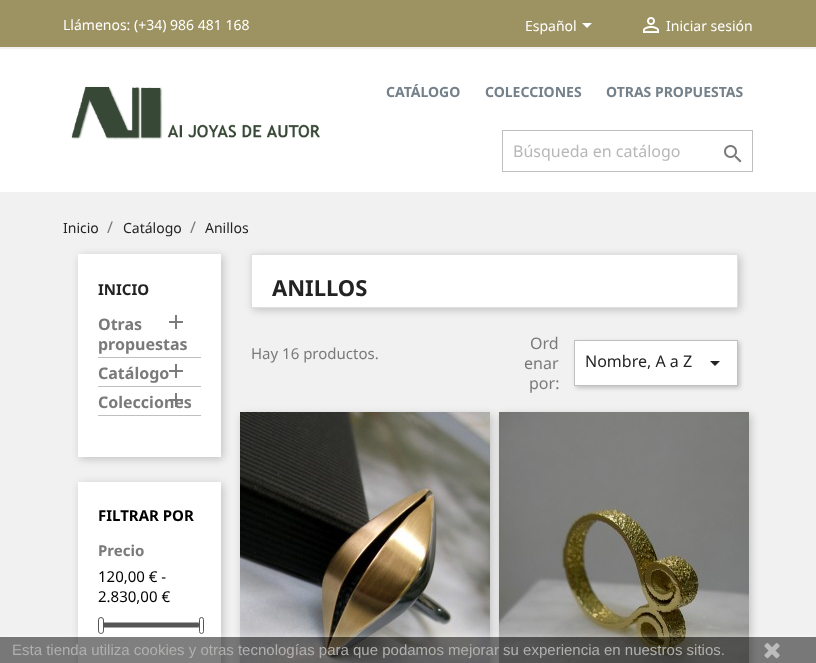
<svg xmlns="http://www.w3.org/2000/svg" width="816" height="663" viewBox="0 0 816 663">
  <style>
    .t1 { font: 14px Noto Sans; fill: #fff; }
    .t2 { font: bold 14px Noto Sans; fill: #74818a; }
    .t3 { font: 16px Noto Sans; fill: #b7b7b7; }
    .t4 { font: 14px Noto Sans; fill: #232323; }
    .t5 { font: 16px Noto Sans; fill: #7a7a7a; }
    .t6 { font: bold 15px Noto Sans; fill: #232323; }
    .t7 { font: bold 16px Noto Sans; fill: #7a7a7a; }
    .t8 { font: bold 15px Noto Sans; fill: #000; }
    .t9 { font: bold 15px Noto Sans; fill: #7a7a7a; }
    .t10 { font: 15px Noto Sans; fill: #000; }
    .t11 { font: bold 22px Noto Sans; fill: #232323; }
    .t12 { font: 15px Noto Sans; fill: #7a7a7a; }
    .t13 { font: 16px Noto Sans; fill: #232323; }
    .t14 { font: 15px Liberation Sans; fill: #b0b0af; }
  </style>
  <defs>
    <clipPath id="clip1"><rect x="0" y="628" width="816" height="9"/></clipPath>
  </defs>
  <rect width="100%" height="100%" fill="#fff"/>
  <rect x="0" y="0" width="816" height="47" fill="#9d9362"/>
  <rect x="0" y="47" width="816" height="2" fill="#f1f1f1"/>
  <text x="63" y="30" class="t1">Llámenos: (+34) 986 481 168</text>
  <text x="525" y="31" class="t1">Español</text>
  <path d="M582 23H592L587 28Z" fill="#fff"/>
  <image x="643" y="17" width="16" height="16" href="images/1.png"/>
  <text x="666" y="31" class="t1">Iniciar sesión</text>
  <image x="71" y="86" width="249" height="54" href="images/2.png"/>
  <text x="386" y="97" class="t2">CATÁLOGO</text>
  <text x="485" y="97" class="t2">COLECCIONES</text>
  <text x="606" y="97" class="t2">OTRAS PROPUESTAS</text>
  <rect x="502.5" y="130.5" width="250" height="41" fill="none" stroke="#bfbfbf"/>
  <text x="513" y="157" class="t3">Búsqueda en catálogo</text>
  <image x="724" y="145" width="18" height="18" href="images/3.png"/>
  <rect x="0" y="192" width="816" height="471" fill="#f1f1f1"/>
  <text x="63" y="233" class="t4">Inicio</text>
  <text x="107" y="233" class="t5">/</text>
  <text x="123" y="233" class="t4">Catálogo</text>
  <text x="190" y="233" class="t5">/</text>
  <text x="205" y="233" class="t4">Anillos</text>
  <rect x="80" y="256" width="143" height="203" fill="#00000033" filter="blur(4px)"/>
  <rect x="78" y="254" width="143" height="203" fill="#fff"/>
  <text x="98" y="295" class="t6">INICIO</text>
  <image x="169" y="315" width="14" height="14" href="images/4.png"/>
  <rect x="98" y="357" width="103" height="1" fill="#bfbfbf"/>
  <text x="98" y="330" class="t7">Otras</text>
  <text x="98" y="350" class="t7">propuestas</text>
  <rect x="98" y="386" width="103" height="1" fill="#bfbfbf"/>
  <text x="98" y="379" class="t7">Catálogo</text>
  <image x="169" y="364" width="14" height="14" href="images/4.png"/>
  <text x="98" y="408" class="t7">Colecciones</text>
  <image x="169" y="393" width="14" height="14" href="images/5.png"/>
  <rect x="98" y="415" width="103" height="1" fill="#bfbfbf"/>
  <rect x="80" y="484" width="143" height="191" fill="#00000033" filter="blur(4px)"/>
  <rect x="78" y="482" width="143" height="181" fill="#fff"/>
  <text x="98" y="521" class="t8">FILTRAR POR</text>
  <text x="98" y="556" class="t9">Precio</text>
  <text x="98" y="582" class="t10">120,00 € -</text>
  <text x="98" y="602" class="t10">2.830,00 €</text>
  <rect x="98.5" y="622.5" width="102" height="5" rx="2.5" fill="none" stroke="#aaa"/>
  <rect x="99" y="623" width="101" height="4" rx="2" fill="#555"/>
  <rect x="98.5" y="617.5" width="5" height="16" rx="2.5" fill="#fff" stroke="#555"/>
  <rect x="199.5" y="617.5" width="4" height="16" rx="2" fill="#fff" stroke="#555"/>
  <rect x="253" y="256" width="487" height="54" fill="#00000033" filter="blur(4px)"/>
  <rect x="251.5" y="254.5" width="486" height="53" fill="#fff" stroke="#dfdfdf"/>
  <text x="272" y="296" class="t11">ANILLOS</text>
  <text x="251" y="359" class="t12">Hay 16 productos.</text>
  <text x="530" y="349" class="t5">Ord</text>
  <text x="524" y="369" class="t5">enar</text>
  <text x="529" y="389" class="t5">por:</text>
  <rect x="576" y="342" width="164" height="46" fill="#00000033" filter="blur(2px)"/>
  <rect x="574.5" y="340.5" width="163" height="45" fill="#fff" stroke="#bfbfbf"/>
  <text x="585" y="367" class="t13">Nombre, A a Z</text>
  <path d="M710 361H720L715 366Z" fill="#232323"/>
  <rect x="242" y="415" width="250" height="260" fill="#00000033" filter="blur(4px)"/>
  <image x="240" y="412" width="250" height="251" href="images/6.png"/>
  <rect x="501" y="415" width="250" height="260" fill="#00000033" filter="blur(4px)"/>
  <image x="499" y="412" width="250" height="251" href="images/7.png"/>
  <g clip-path="url(#clip1)">
    <rect x="0" y="637" width="816" height="26" fill="#ffffff80" filter="blur(5px)"/>
  </g>
  <rect x="0" y="637" width="816" height="26" fill="#00000080"/>
  <text x="12" y="655" class="t14">Esta tienda utiliza cookies y otras tecnologías para que podamos mejorar su experiencia en nuestros sitios.</text>
  <image x="764" y="643" width="16" height="16" href="images/8.png"/>
</svg>
